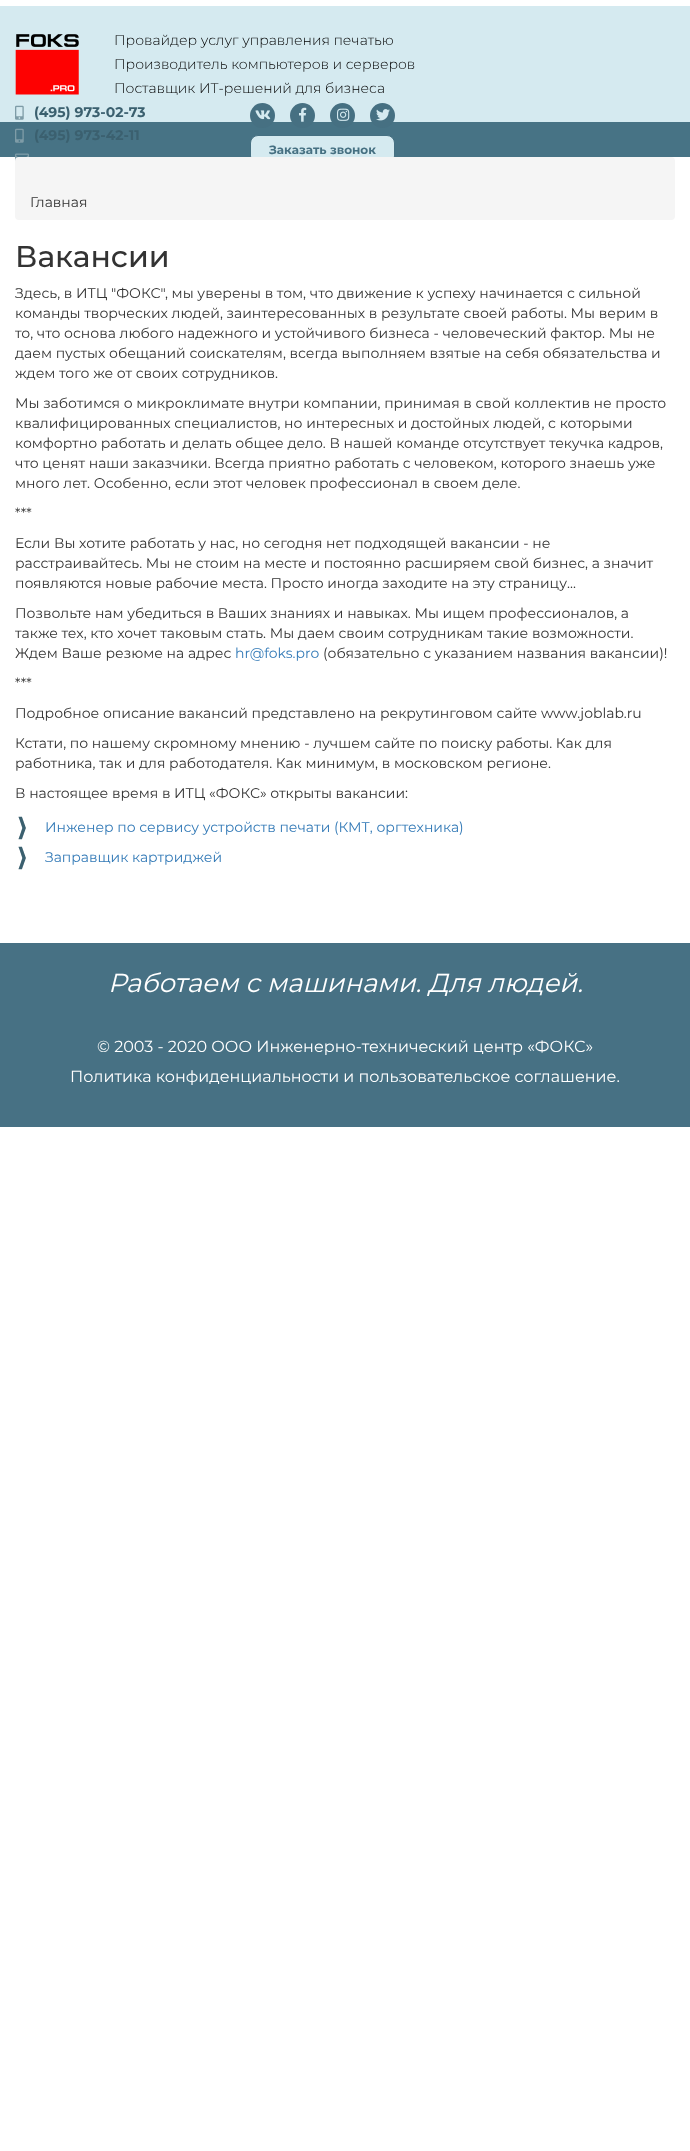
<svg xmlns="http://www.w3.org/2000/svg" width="690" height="2151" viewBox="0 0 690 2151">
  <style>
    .t1 { font: 300 14px Montserrat; fill: #000; }
    .t2 { font: bold 14px Montserrat; fill: #3b606f; }
    .t3 { font: bold 12px Montserrat; fill: #467082; }
    .t4 { font: 14px Montserrat; fill: #333; }
    .t5 { font: 500 30px Montserrat; fill: #333; }
    .t6 { font: 14px Montserrat; fill: #337ab7; }
    .t7 { font: italic 26px Montserrat; fill: #fff; }
    .t8 { font: 16px Montserrat; fill: #fff; }
  </style>
  <rect width="100%" height="100%" fill="#fff"/>
  <rect x="0" y="6" width="690" height="116" fill="#d5eaf0"/>
  <image x="15" y="34" width="64" height="61" href="images/1.png"/>
  <text x="114" y="45" class="t1">Провайдер услуг управления печатью</text>
  <text x="114" y="69" class="t1">Производитель компьютеров и серверов</text>
  <text x="114" y="93" class="t1">Поставщик ИТ-решений для бизнеса</text>
  <image x="15" y="105" width="9" height="15" href="images/2.png"/>
  <text x="34" y="117" class="t2">(495) 973-02-73</text>
  <rect x="0" y="122" width="690" height="35" fill="#477385"/>
  <image x="15" y="128" width="9" height="15" href="images/3.png"/>
  <text x="34" y="140" class="t2">(495) 973-42-11</text>
  <image x="15" y="153" width="14" height="8" href="images/4.png"/>
  <circle cx="262.5" cy="115.5" r="12.5" fill="#467082"/>
  <image x="255" y="110" width="16" height="10" href="images/5.png"/>
  <circle cx="302.5" cy="115.5" r="12.5" fill="#467082"/>
  <image x="299" y="107" width="8" height="15" href="images/6.png"/>
  <circle cx="342.5" cy="115.5" r="12.5" fill="#467082"/>
  <image x="337" y="108" width="13" height="13" href="images/7.png"/>
  <circle cx="382.5" cy="115.5" r="12.5" fill="#467082"/>
  <image x="376" y="109" width="14" height="12" href="images/8.png"/>
  <rect x="250.5" y="135.5" width="144" height="28" rx="7.5" fill="#d5eaf0" stroke="#467082"/>
  <text x="269" y="154" class="t3">Заказать звонок</text>
  <rect x="15" y="157" width="660" height="63" rx="4" fill="#f5f5f5"/>
  <text x="30" y="207" class="t4">Главная</text>
  <text x="15" y="267" class="t5">Вакансии</text>
  <text x="15" y="298" class="t4">Здесь, в ИТЦ "ФОКС", мы уверены в том, что движение к успеху начинается с сильной</text>
  <text x="15" y="318" class="t4">команды творческих людей, заинтересованных в результате своей работы. Мы верим в</text>
  <text x="15" y="338" class="t4">то, что основа любого надежного и устойчивого бизнеса - человеческий фактор. Мы не</text>
  <text x="15" y="358" class="t4">даем пустых обещаний соискателям, всегда выполняем взятые на себя обязательства и</text>
  <text x="15" y="378" class="t4">ждем того же от своих сотрудников.</text>
  <text x="15" y="408" class="t4">Мы заботимся о микроклимате внутри компании, принимая в свой коллектив не просто</text>
  <text x="15" y="428" class="t4">квалифицированных специалистов, но интересных и достойных людей, с которыми</text>
  <text x="15" y="448" class="t4">комфортно работать и делать общее дело. В нашей команде отсутствует текучка кадров,</text>
  <text x="15" y="468" class="t4">что ценят наши заказчики. Всегда приятно работать с человеком, которого знаешь уже</text>
  <text x="15" y="488" class="t4">много лет. Особенно, если этот человек профессионал в своем деле.</text>
  <text x="15" y="518" class="t4">***</text>
  <text x="15" y="548" class="t4">Если Вы хотите работать у нас, но сегодня нет подходящей вакансии - не</text>
  <text x="15" y="568" class="t4">расстраивайтесь. Мы не стоим на месте и постоянно расширяем свой бизнес, а значит</text>
  <text x="15" y="588" class="t4">появляются новые рабочие места. Просто иногда заходите на эту страницу...</text>
  <text x="15" y="618" class="t4">Позвольте нам убедиться в Ваших знаниях и навыках. Мы ищем профессионалов, а</text>
  <text x="15" y="638" class="t4">также тех, кто хочет таковым стать. Мы даем своим сотрудникам такие возможности.</text>
  <text x="15" y="658" class="t4">Ждем Ваше резюме на адрес</text>
  <text x="235" y="658" class="t6">hr@foks.pro</text>
  <text x="323" y="658" class="t4">(обязательно с указанием названия вакансии)!</text>
  <text x="15" y="688" class="t4">***</text>
  <text x="15" y="718" class="t4">Подробное описание вакансий представлено на рекрутинговом сайте www.joblab.ru</text>
  <text x="15" y="748" class="t4">Кстати, по нашему скромному мнению - лучшем сайте по поиску работы. Как для</text>
  <text x="15" y="768" class="t4">работника, так и для работодателя. Как минимум, в московском регионе.</text>
  <text x="15" y="798" class="t4">В настоящее время в ИТЦ «ФОКС» открыты вакансии:</text>
  <image x="18" y="816" width="8" height="24" href="images/9.png"/>
  <text x="45" y="832" class="t6">Инженер по сервису устройств печати (КМТ, оргтехника)</text>
  <image x="18" y="846" width="8" height="24" href="images/9.png"/>
  <text x="45" y="862" class="t6">Заправщик картриджей</text>
  <rect x="0" y="943" width="690" height="184" fill="#477184"/>
  <text x="108" y="992" class="t7">Работаем с машинами. Для людей.</text>
  <text x="97" y="1052" class="t8">© 2003 - 2020 ООО Инженерно-технический центр «ФОКС»</text>
  <text x="70" y="1082" class="t8">Политика конфиденциальности и пользовательское соглашение.</text>
</svg>
